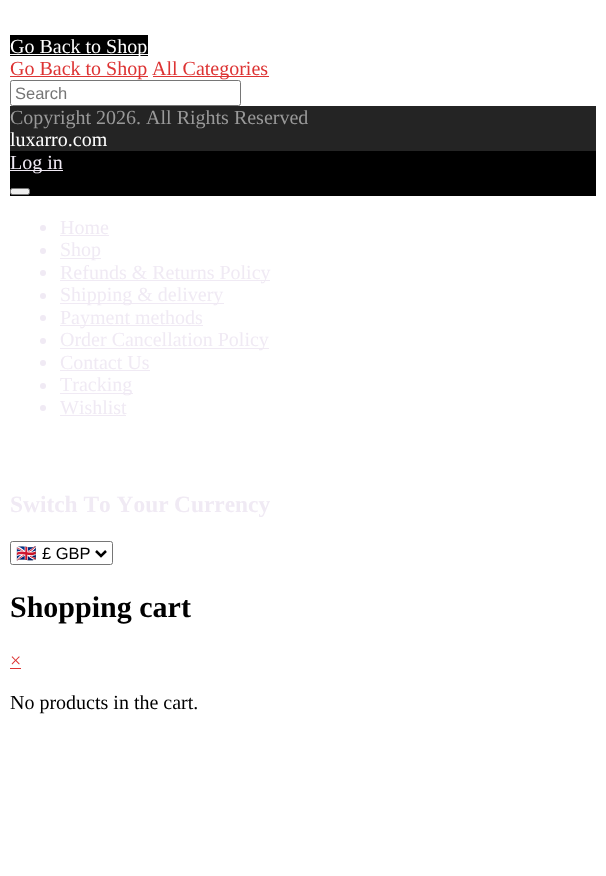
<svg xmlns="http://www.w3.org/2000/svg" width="606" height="876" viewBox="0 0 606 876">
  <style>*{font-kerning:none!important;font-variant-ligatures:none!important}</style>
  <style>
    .t1 { font: 20px Liberation Serif; fill: #fff; }
    .t2 { font: 20px Liberation Serif; fill: #d33; }
    .t3 { font: 16.5px Liberation Sans; fill: #757575; }
    .t4 { font: 20px Liberation Serif; fill: #999; }
    .t5 { font: 20px Liberation Serif; fill: #f0eaf4; }
    .t6 { font: bold 23.4px Liberation Serif; fill: #f0eaf4; }
    .t7 { font: 16.5px Noto Color Emoji; fill: #000; }
    .t8 { font: 16.5px Liberation Sans; fill: #000; }
    .t9 { font: bold 30px Liberation Serif; fill: #000; }
    .t10 { font: 20px Liberation Serif; fill: #000; }
  </style>
  <rect width="100%" height="100%" fill="#fff"/>
  <rect x="10" y="35" width="138" height="21" fill="#000"/>
  <rect x="10" y="54" width="138" height="1" fill="#fff"/>
  <text x="10" y="53" class="t1">Go Back to Shop</text>
  <rect x="10" y="76" width="138" height="1" fill="#d33"/>
  <text x="10" y="75" class="t2">Go Back to Shop</text>
  <rect x="153" y="76" width="116" height="1" fill="#d33"/>
  <text x="152" y="75" class="t2">All Categories</text>
  <rect x="10.5" y="80.5" width="230" height="25" rx="2" fill="none" stroke="#767676"/>
  <text x="15" y="99" class="t3">Search</text>
  <rect x="10" y="106" width="586" height="45" fill="#242424"/>
  <text x="10" y="124" class="t4">Copyright 2026. All Rights Reserved</text>
  <text x="10" y="146" class="t1">luxarro.com</text>
  <rect x="10" y="151" width="586" height="45" fill="#000"/>
  <rect x="10" y="170" width="53" height="1" fill="#f0eaf4"/>
  <text x="10" y="169" class="t5">Log in</text>
  <rect x="10.5" y="188.5" width="19" height="6" rx="2" fill="#efefef" stroke="#767676"/>
  <circle cx="43" cy="228" r="3" fill="#f0eaf4"/>
  <text x="60" y="234" class="t5">Home</text>
  <rect x="60" y="235" width="49" height="1" fill="#f0eaf4"/>
  <circle cx="43" cy="251" r="3" fill="#f0eaf4"/>
  <rect x="60" y="258" width="41" height="1" fill="#f0eaf4"/>
  <text x="60" y="256" class="t5">Shop</text>
  <circle cx="43" cy="273" r="3" fill="#f0eaf4"/>
  <rect x="60" y="280" width="210" height="1" fill="#f0eaf4"/>
  <text x="60" y="279" class="t5">Refunds &amp; Returns Policy</text>
  <circle cx="43" cy="296" r="3" fill="#f0eaf4"/>
  <rect x="60" y="303" width="164" height="1" fill="#f0eaf4"/>
  <text x="60" y="301" class="t5">Shipping &amp; delivery</text>
  <circle cx="43" cy="318" r="3" fill="#f0eaf4"/>
  <rect x="60" y="325" width="143" height="1" fill="#f0eaf4"/>
  <text x="60" y="324" class="t5">Payment methods</text>
  <circle cx="43" cy="341" r="3" fill="#f0eaf4"/>
  <rect x="60" y="348" width="209" height="1" fill="#f0eaf4"/>
  <text x="60" y="346" class="t5">Order Cancellation Policy</text>
  <circle cx="43" cy="363" r="3" fill="#f0eaf4"/>
  <text x="60" y="369" class="t5">Contact Us</text>
  <rect x="60" y="370" width="90" height="1" fill="#f0eaf4"/>
  <circle cx="43" cy="386" r="3" fill="#f0eaf4"/>
  <rect x="60" y="393" width="73" height="1" fill="#f0eaf4"/>
  <text x="60" y="391" class="t5">Tracking</text>
  <circle cx="43" cy="408" r="3" fill="#f0eaf4"/>
  <text x="60" y="414" class="t5">Wishlist</text>
  <rect x="60" y="415" width="66" height="1" fill="#f0eaf4"/>
  <text x="10" y="512" class="t6">Switch To Your</text>
  <text x="174" y="512" class="t6">Currency</text>
  <rect x="10.5" y="541.5" width="102" height="23" rx="2" fill="none" stroke="#767676"/>
  <path d="M96 551L101 556L106 551" fill="none" stroke="#000" stroke-width="2.5"/>
  <text x="16" y="559" class="t7">🇬🇧</text>
  <text x="42" y="559" class="t8">£ GBP</text>
  <text x="10" y="617" class="t9">Shopping cart</text>
  <text x="10" y="667" class="t2">×</text>
  <rect x="10" y="668" width="11" height="1" fill="#d33"/>
  <text x="10" y="709" class="t10">No products in the cart.</text>
</svg>
